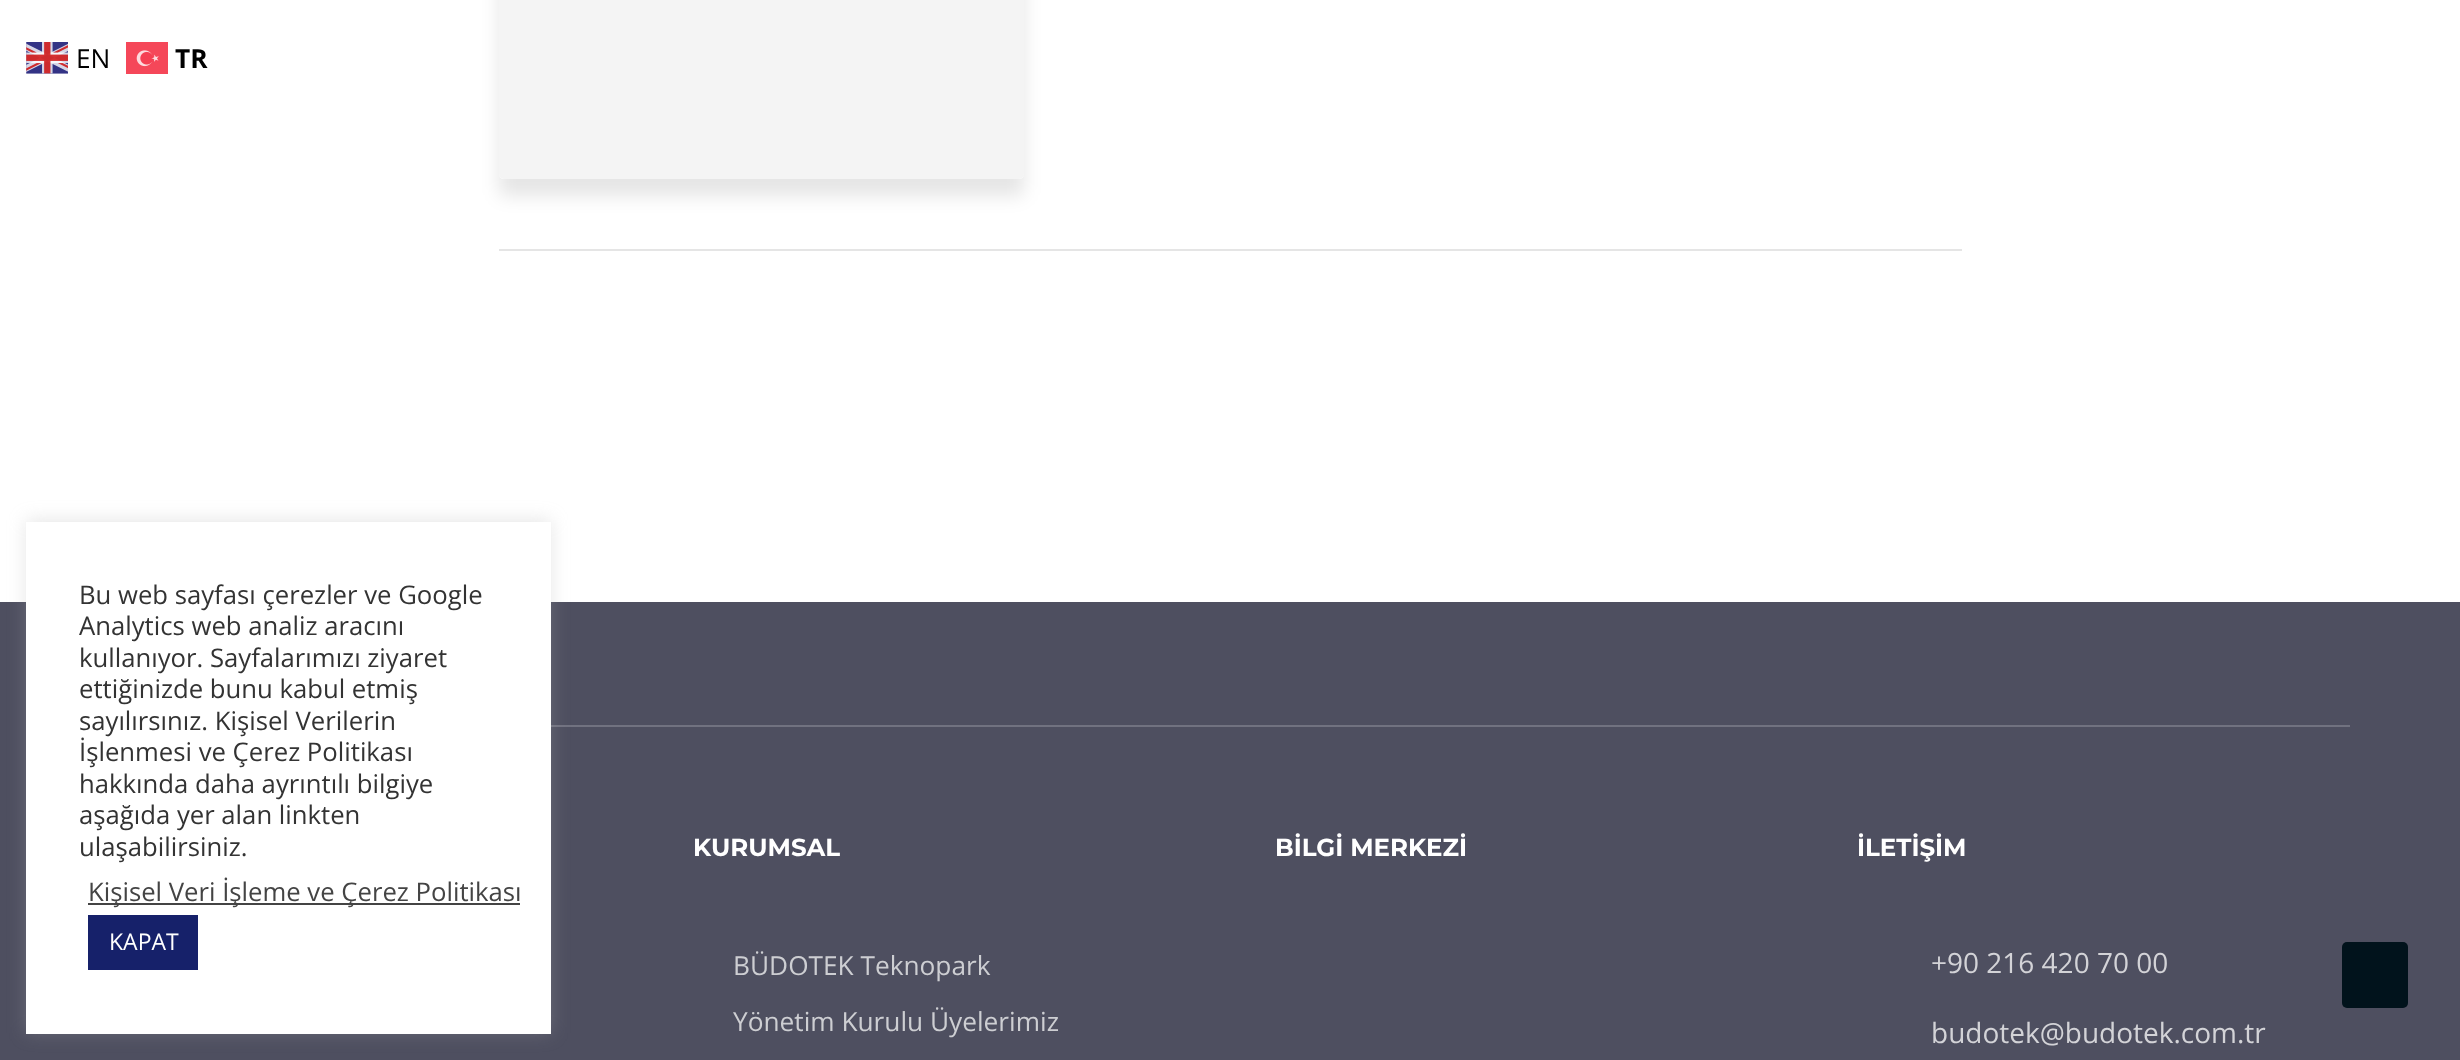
<svg xmlns="http://www.w3.org/2000/svg" width="2460" height="1060" viewBox="0 0 2460 1060">
  <style>
    .t1 { font: 26.25px Open Sans; fill: #000; }
    .t2 { font: bold 26.25px Open Sans; fill: #000; }
    .t3 { font: 25.7px Open Sans; fill: #333; }
    .t4 { font: 25.7px Open Sans; fill: #444; }
    .t5 { font: 23px Open Sans; fill: #fff; }
    .t6 { font: bold 24.5px Montserrat; fill: #fff; }
    .t7 { font: 26.25px Open Sans; fill: #cdced2; }
    .t8 { font: 28px Open Sans; fill: #d3d3d7; }
  </style>
  <defs>
    <clipPath id="clip1"><path d="M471 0H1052V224H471ZM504-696H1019C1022-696 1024-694 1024-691V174C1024 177 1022 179 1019 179H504C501 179 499 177 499 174V-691C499-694 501-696 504-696Z" clip-rule="evenodd"/></clipPath>
  </defs>
  <rect width="100%" height="100%" fill="#fff"/>
  <image x="26" y="42" width="42" height="32" href="images/1.png"/>
  <text x="76" y="68" class="t1">EN</text>
  <image x="126" y="42" width="42" height="32" href="images/2.png"/>
  <text x="175" y="68" class="t2">TR</text>
  <rect x="0" y="602" width="2460" height="458" fill="#4e4f60"/>
  <rect x="551" y="725" width="1799" height="2" fill="#717280"/>
  <rect x="26" y="520" width="525" height="513" fill="#acabab4d" filter="blur(9px)"/>
  <rect x="26" y="522" width="525" height="512" fill="#fff"/>
  <text x="79" y="604" class="t3">Bu web sayfası çerezler ve Google</text>
  <text x="79" y="635" class="t3">Analytics web analiz aracını</text>
  <text x="79" y="667" class="t3">kullanıyor. Sayfalarımızı ziyaret</text>
  <text x="79" y="698" class="t3">ettiğinizde bunu kabul etmiş</text>
  <text x="79" y="730" class="t3">sayılırsınız. Kişisel Verilerin</text>
  <text x="79" y="761" class="t3">İşlenmesi ve Çerez Politikası</text>
  <text x="79" y="793" class="t3">hakkında daha ayrıntılı bilgiye</text>
  <text x="79" y="824" class="t3">aşağıda yer alan linkten</text>
  <text x="79" y="856" class="t3">ulaşabilirsiniz.</text>
  <rect x="88" y="903" width="432" height="2" fill="#444"/>
  <text x="88" y="901" class="t4">Kişisel Veri İşleme ve Çerez Politikası</text>
  <rect x="88" y="915" width="110" height="55" fill="#16216a"/>
  <text x="109" y="950" class="t5">KAPAT</text>
  <rect x="499" y="249" width="1463" height="2" fill="#e5e5e5"/>
  <g clip-path="url(#clip1)">
    <rect x="499" y="-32" width="525" height="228" rx="5" fill="#0000001a" filter="blur(9px)"/>
  </g>
  <rect x="499" y="-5" width="525" height="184" rx="5" fill="#a7a7a71f"/>
  <text x="693" y="856" class="t6">KURUMSAL</text>
  <text x="733" y="975" class="t7">BÜDOTEK Teknopark</text>
  <text x="733" y="1031" class="t7">Yönetim Kurulu Üyelerimiz</text>
  <text x="1275" y="856" class="t6">BİLGİ MERKEZİ</text>
  <text x="1857" y="856" class="t6">İLETİŞİM</text>
  <text x="1931" y="973" class="t8">+90 216 420 70 00</text>
  <text x="1931" y="1043" class="t8">budotek@budotek.com.tr</text>
  <rect x="2342" y="942" width="66" height="66" rx="5" fill="#01131c"/>
</svg>
